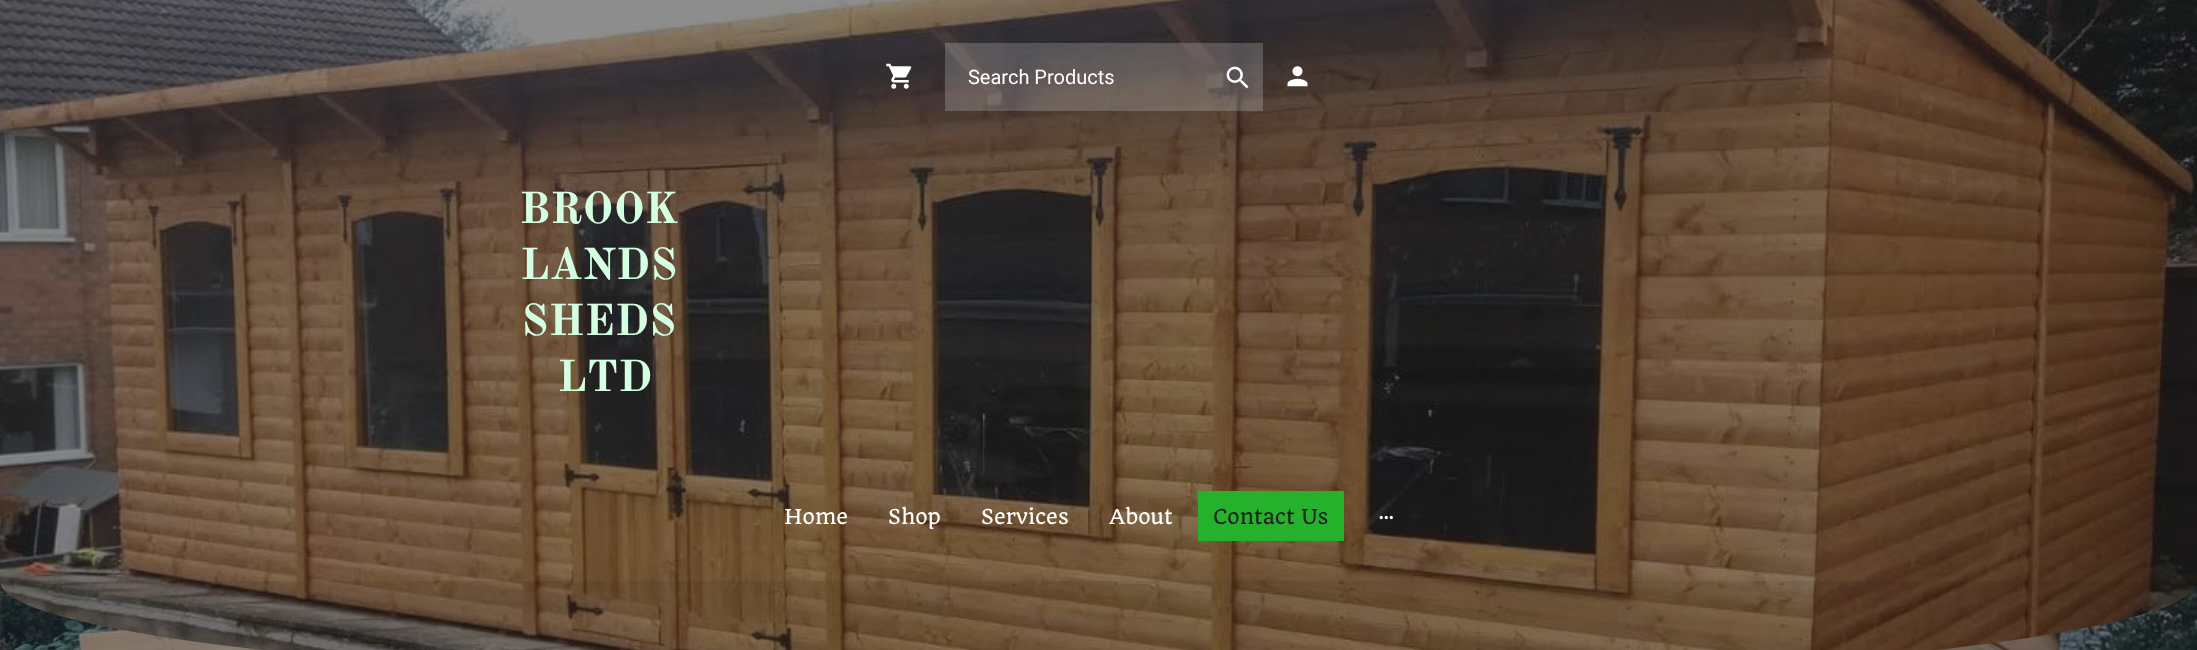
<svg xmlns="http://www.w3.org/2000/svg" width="2197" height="650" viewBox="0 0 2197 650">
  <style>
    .t1 { font: 20px Roboto; fill: #fff; }
    .t2 { font: 20px Quando; fill: #fff; }
    .t3 { font: 20px Quando; fill: #222; }
  </style>
  <defs>
    <linearGradient id="g1" gradientUnits="userSpaceOnUse" x1="1099" y1="581" x2="1099" y2="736"><stop offset="0" stop-color="#000" stop-opacity="0.07"/><stop offset="1" stop-color="#000" stop-opacity="0"/></linearGradient>
  </defs>
  <rect width="100%" height="100%" fill="#fff"/>
  <image x="0" y="0" width="2197" height="650" href="images/1.png"/>
  <image x="886" y="63" width="26" height="26" href="images/2.png"/>
  <rect x="945" y="43" width="318" height="68" fill="#ffffff33"/>
  <text x="968" y="84" class="t1">Search Products</text>
  <image x="1226" y="66" width="23" height="23" href="images/3.png"/>
  <image x="1287" y="66" width="21" height="21" href="images/4.png"/>
  <image x="521" y="191" width="157" height="200" href="images/5.png"/>
  <text x="784" y="524" class="t2">Home</text>
  <text x="888" y="524" class="t2">Shop</text>
  <text x="981" y="524" class="t2">Services</text>
  <text x="1109" y="524" class="t2">About</text>
  <rect x="1198" y="491" width="146" height="50" fill="#26b12c"/>
  <text x="1213" y="524" class="t3">Contact Us</text>
  <image x="1379" y="515" width="14" height="5" href="images/6.png"/>
  <image x="0" y="583" width="2197" height="67" href="images/7.png"/>
  <rect x="0" y="581" width="2197" height="69" fill="url(#g1)"/>
</svg>
